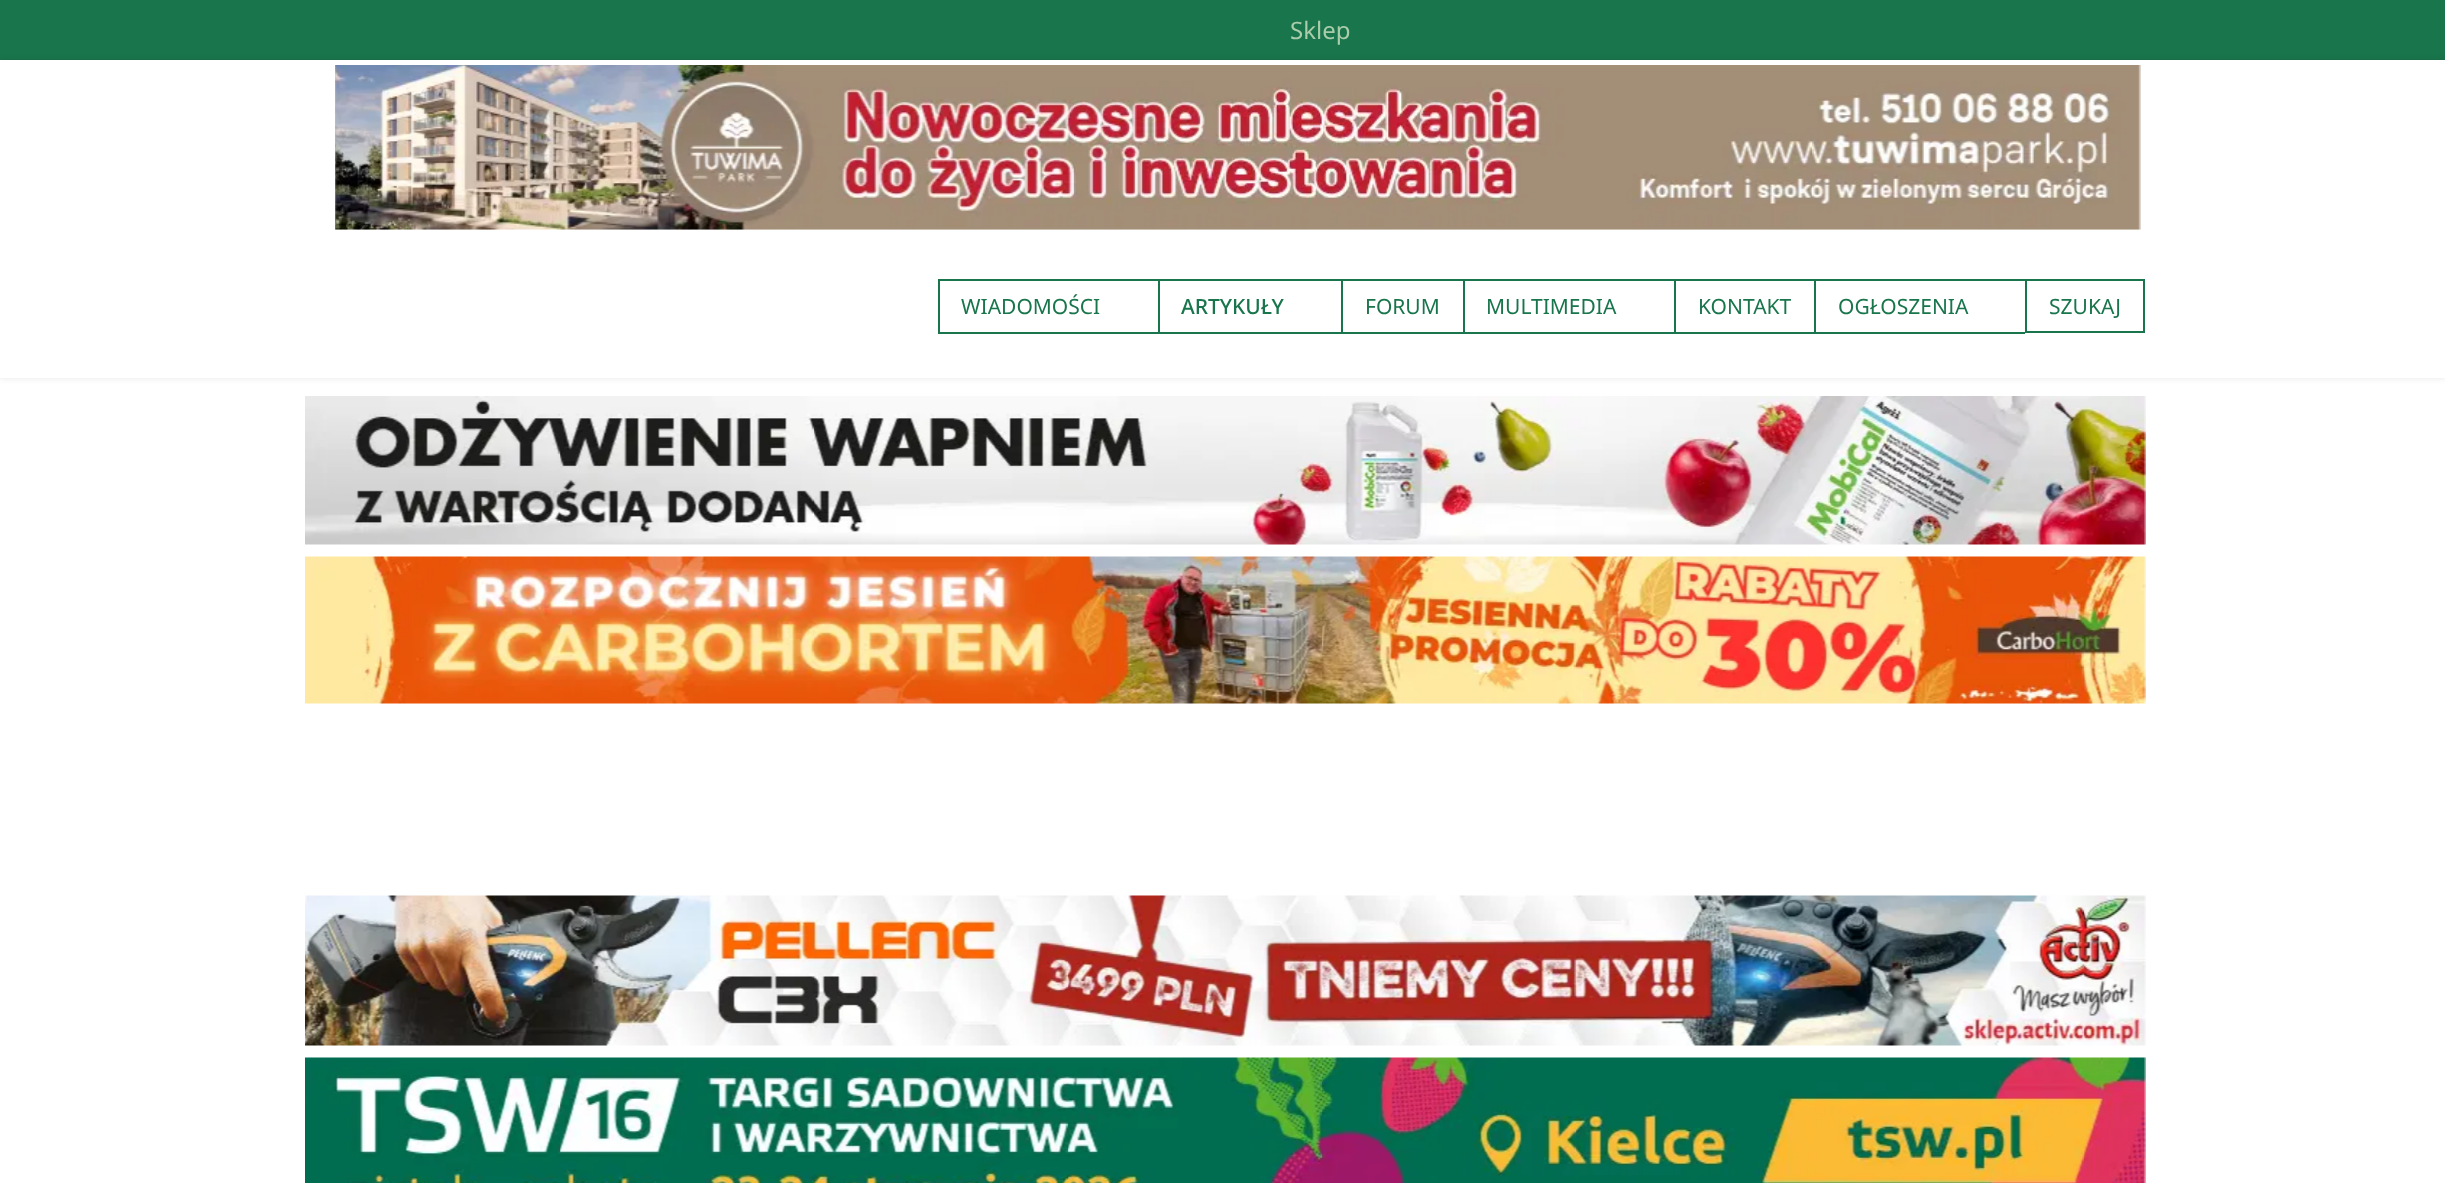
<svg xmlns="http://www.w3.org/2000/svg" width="2445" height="1183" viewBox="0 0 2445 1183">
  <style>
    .t1 { font: 24px Noto Sans; fill: #aca; }
    .t2 { font: 21px Noto Sans; fill: #19754c; }
    .t3 { font: 500 21px Noto Sans; fill: #19754c; }
  </style>
  <defs>
    <clipPath id="clip1"><path d="M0 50H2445V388H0ZM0 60H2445V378H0Z" clip-rule="evenodd"/></clipPath>
  </defs>
  <rect width="100%" height="100%" fill="#fff"/>
  <rect x="0" y="0" width="2445" height="60" fill="#19754c"/>
  <text x="1290" y="39" class="t1">Sklep</text>
  <g clip-path="url(#clip1)">
    <rect x="0" y="60" width="2445" height="318" fill="#0000001a" filter="blur(3px)"/>
  </g>
  <image x="335" y="65" width="1806" height="165" href="images/1.png"/>
  <rect x="938" y="279" width="1087" height="2" fill="#19754c"/>
  <rect x="938" y="332" width="1087" height="2" fill="#19754c"/>
  <rect x="938" y="279" width="2" height="54" fill="#19754c"/>
  <text x="961" y="314" class="t2">WIADOMOŚCI</text>
  <rect x="1158" y="279" width="2" height="54" fill="#19754c"/>
  <text x="1181" y="314" class="t3">ARTYKUŁY</text>
  <rect x="1341" y="279" width="2" height="54" fill="#19754c"/>
  <text x="1365" y="314" class="t2">FORUM</text>
  <rect x="1463" y="279" width="2" height="54" fill="#19754c"/>
  <text x="1486" y="314" class="t2">MULTIMEDIA</text>
  <rect x="1674" y="279" width="2" height="54" fill="#19754c"/>
  <text x="1698" y="314" class="t2">KONTAKT</text>
  <rect x="1814" y="279" width="2" height="54" fill="#19754c"/>
  <text x="1838" y="314" class="t2">OGŁOSZENIA</text>
  <rect x="2026" y="280" width="118" height="52" fill="none" stroke="#19754c" stroke-width="2"/>
  <text x="2049" y="314" class="t2">SZUKAJ</text>
  <image x="305" y="396" width="1841" height="149" href="images/2.png"/>
  <image x="305" y="556" width="1841" height="148" href="images/3.png"/>
  <image x="305" y="895" width="1841" height="151" href="images/4.png"/>
  <image x="305" y="1057" width="1841" height="126" href="images/5.png"/>
</svg>
